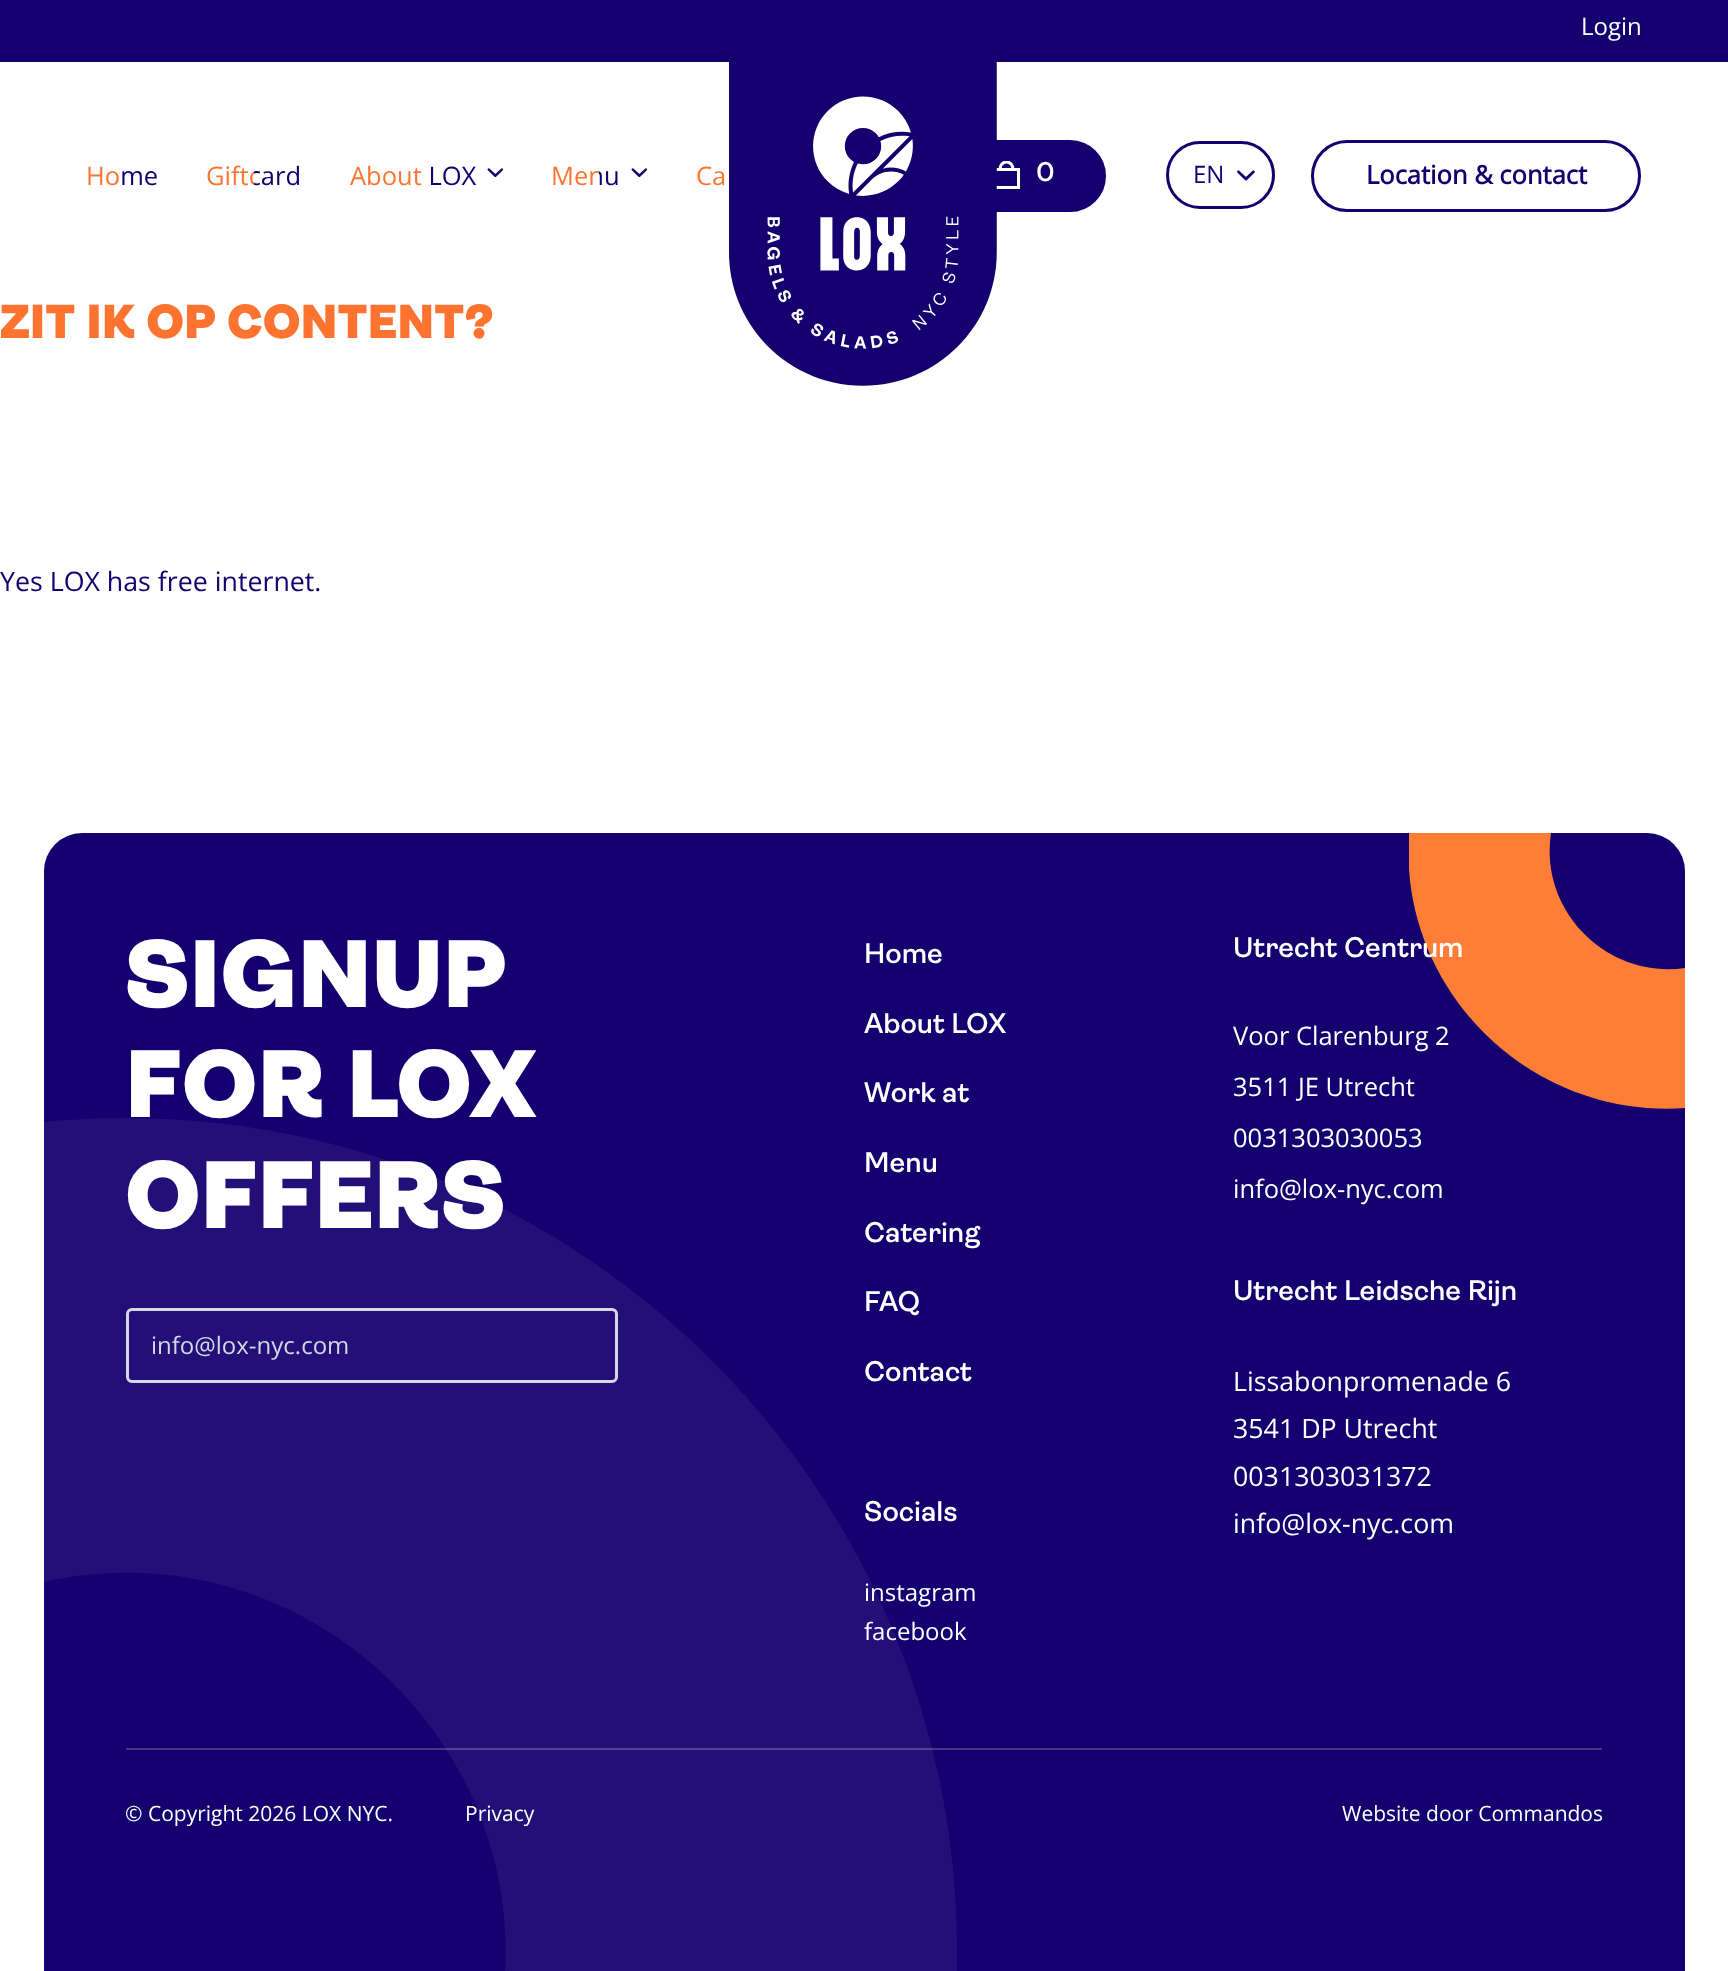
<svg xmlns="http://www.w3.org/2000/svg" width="1728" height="1971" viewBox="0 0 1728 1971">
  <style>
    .t1 { font: 24px Open Sans; fill: #fff; }
    .t2 { font: 25.5px Open Sans; fill: url(#g1); }
    .t3 { font: 25.5px Open Sans; fill: url(#g2); }
    .t4 { font: 25.5px Open Sans; fill: url(#g3); }
    .t5 { font: 25.5px Open Sans; fill: url(#g4); }
    .t6 { font: 25.5px Open Sans; fill: url(#g5); }
    .t7 { font: 600 27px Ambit; fill: #fff; }
    .t8 { font: 24px Open Sans; fill: #14006e; }
    .t9 { font: bold 25.5px Open Sans; fill: #14006e; }
    .t10 { font: 900 48px Ambit; fill: #ff7330; }
    .t11 { font: 26.75px Open Sans; fill: #14006e; }
    .t12 { font: 900 96px Ambit; fill: #fff; }
    .t13 { font: 24px Open Sans; fill: #d8d6e6; }
    .t14 { font: 600 28.5px Ambit; fill: #fff; }
    .t15 { font: 25.5px Open Sans; fill: #fff; }
    .t16 { font: 26.75px Open Sans; fill: #fff; }
    .t17 { font: 21px Open Sans; fill: #fff; }
  </style>
  <defs>
    <linearGradient id="g1" gradientUnits="userSpaceOnUse" x1="86" y1="175" x2="158" y2="175"><stop offset="0" stop-color="#ff7330"/><stop offset="0.5" stop-color="#ff7330"/><stop offset="0.5" stop-color="#14006e"/></linearGradient>
    <linearGradient id="g2" gradientUnits="userSpaceOnUse" x1="206" y1="175" x2="302" y2="175"><stop offset="0" stop-color="#ff7330"/><stop offset="0.5" stop-color="#ff7330"/><stop offset="0.5" stop-color="#14006e"/></linearGradient>
    <linearGradient id="g3" gradientUnits="userSpaceOnUse" x1="350" y1="175" x2="503" y2="175"><stop offset="0" stop-color="#ff7330"/><stop offset="0.5" stop-color="#ff7330"/><stop offset="0.5" stop-color="#14006e"/></linearGradient>
    <linearGradient id="g4" gradientUnits="userSpaceOnUse" x1="551" y1="175" x2="648" y2="175"><stop offset="0" stop-color="#ff7330"/><stop offset="0.5" stop-color="#ff7330"/><stop offset="0.5" stop-color="#14006e"/></linearGradient>
    <linearGradient id="g5" gradientUnits="userSpaceOnUse" x1="696" y1="175" x2="796" y2="175"><stop offset="0" stop-color="#ff7330"/><stop offset="0.5" stop-color="#ff7330"/><stop offset="0.5" stop-color="#14006e"/></linearGradient>
    <clipPath id="clip1"><rect x="993" y="161" width="27" height="28"/></clipPath>
    <clipPath id="clip2"><rect x="1409" y="591" width="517" height="519"/></clipPath>
  </defs>
  <rect width="100%" height="100%" fill="#fff"/>
  <rect x="0" y="0" width="1728" height="62" fill="#14006e"/>
  <text x="1581" y="35" class="t1">Login</text>
  <text x="86" y="185" class="t2">Home</text>
  <text x="206" y="185" class="t3">Giftcard</text>
  <text x="350" y="185" class="t4">About LOX</text>
  <image x="487" y="168" width="17" height="10" href="images/1.png"/>
  <text x="551" y="185" class="t5">Menu</text>
  <image x="631" y="168" width="17" height="10" href="images/1.png"/>
  <text x="696" y="185" class="t6">Ca</text>
  <rect x="951.5" y="141.5" width="153" height="69" rx="34.5" fill="#14006e" stroke="#14006e" stroke-width="3"/>
  <g clip-path="url(#clip1)">
    <path d="M1006.5 162C1010.5 162 1013.5 166 1012.5 169.5H1018.5V187.5H994.5V169.5H1000.5C999.5 166 1002.5 162 1006.5 162ZM997.5 169.5H1017" fill="none" stroke="#fff" stroke-width="3"/>
  </g>
  <image x="729" y="62" width="268" height="324" href="images/2.png"/>
  <text x="1036" y="181" class="t7">0</text>
  <image x="1237" y="170" width="18" height="11" href="images/3.png"/>
  <rect x="1167.5" y="142.5" width="106" height="65" rx="32.5" fill="none" stroke="#14006e" stroke-width="3"/>
  <text x="1193" y="183" class="t8">EN</text>
  <rect x="1312.5" y="141.5" width="327" height="69" rx="34.5" fill="none" stroke="#14006e" stroke-width="3"/>
  <text x="1366" y="184" class="t9">Location &amp; contact</text>
  <text x="0" y="338" class="t10">ZIT IK OP CONTENT?</text>
  <text x="0" y="591" class="t11">Yes LOX has free internet.</text>
  <rect x="44" y="833" width="1641" height="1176" rx="38" fill="#14006e"/>
  <text x="125" y="1007" class="t12">SIGNUP</text>
  <path d="M125 1118C98 1118 71 1119 44 1122V1582C308 1523 549 1755 499 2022H954C995 1537 614 1118 125 1118Z" fill="#220f77"/>
  <text x="125" y="1117" class="t12">FOR LOX</text>
  <text x="125" y="1228" class="t12">OFFERS</text>
  <rect x="127.5" y="1309.5" width="489" height="72" rx="4.5" fill="none" stroke="#d8d6e6" stroke-width="3"/>
  <text x="151" y="1354" class="t13">info@lox-nyc.com</text>
  <text x="864" y="963" class="t14">Home</text>
  <text x="864" y="1033" class="t14">About LOX</text>
  <text x="864" y="1102" class="t14">Work at</text>
  <text x="864" y="1172" class="t14">Menu</text>
  <text x="864" y="1242" class="t14">Catering</text>
  <text x="864" y="1311" class="t14">FAQ</text>
  <text x="864" y="1381" class="t14">Contact</text>
  <text x="864" y="1521" class="t14">Socials</text>
  <text x="864" y="1601" class="t1">instagram</text>
  <text x="864" y="1640" class="t1">facebook</text>
  <g clip-path="url(#clip2)">
    <path d="M1685 1108C1529 1119 1398 989 1409 833H1551C1539 911 1607 979 1685 968Z" fill="#ff7e37"/>
  </g>
  <text x="1233" y="957" class="t14">Utrecht Centrum</text>
  <text x="1233" y="1045" class="t15">Voor Clarenburg 2</text>
  <text x="1233" y="1096" class="t15">3511 JE Utrecht</text>
  <text x="1233" y="1147" class="t15">0031303030053</text>
  <text x="1233" y="1198" class="t15">info@lox-nyc.com</text>
  <text x="1233" y="1300" class="t14">Utrecht Leidsche Rijn</text>
  <text x="1233" y="1391" class="t16">Lissabonpromenade 6</text>
  <text x="1233" y="1438" class="t16">3541 DP Utrecht</text>
  <text x="1233" y="1486" class="t16">0031303031372</text>
  <text x="1233" y="1533" class="t16">info@lox-nyc.com</text>
  <rect x="126" y="1748" width="1476" height="2" fill="#ffffff36"/>
  <text x="125" y="1821" class="t17">© Copyright 2026 LOX NYC.</text>
  <text x="465" y="1821" class="t17">Privacy</text>
  <text x="1342" y="1821" class="t17">Website door Commandos</text>
</svg>
